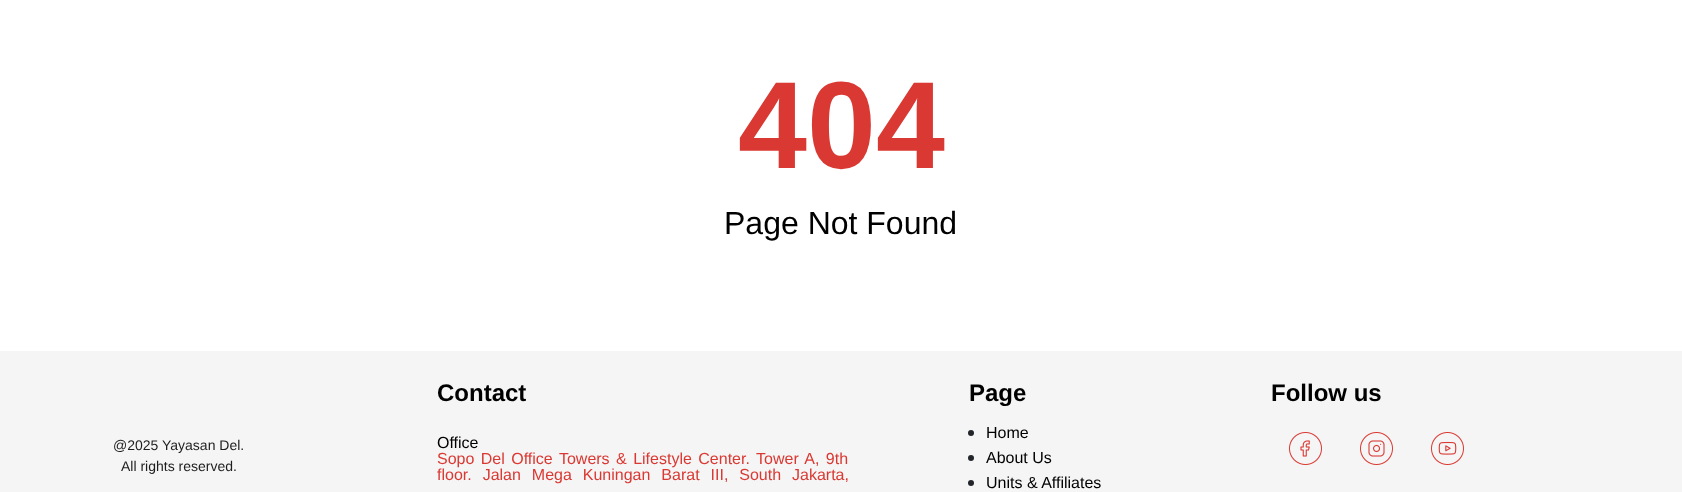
<svg xmlns="http://www.w3.org/2000/svg" width="1682" height="492" viewBox="0 0 1682 492">
  <style>
    .t1 { font: bold 124px Liberation Sans; fill: #da3832; }
    .t2 { font: 32px Liberation Sans; fill: #000; }
    .t3 { font: 14px Liberation Sans; fill: #1d1d1d; }
    .t4 { font: bold 24px Liberation Sans; fill: #000; }
    .t5 { font: 16px Liberation Sans; fill: #000; }
    .t6 { font: 16px Liberation Sans; fill: #da3832; }
  </style>
  <rect width="100%" height="100%" fill="#fff"/>
  <text x="738" y="168" class="t1">404</text>
  <text x="724" y="234" class="t2">Page Not Found</text>
  <rect x="0" y="351" width="1682" height="141" fill="#f5f5f5"/>
  <text x="113" y="450" class="t3">@2025 Yayasan Del.</text>
  <text x="121" y="471" class="t3">All rights reserved.</text>
  <text x="437" y="401" class="t4">Contact</text>
  <text x="437" y="448" class="t5">Office</text>
  <text x="437" y="464" word-spacing="2" class="t6">Sopo Del Office Towers &amp; Lifestyle Center. Tower A, 9th</text>
  <text x="437" y="480" word-spacing="6.5" class="t6">floor. Jalan Mega Kuningan Barat III, South Jakarta,</text>
  <text x="969" y="401" class="t4">Page</text>
  <circle cx="971" cy="433" r="3" fill="#212529"/>
  <text x="986" y="438" class="t5">Home</text>
  <circle cx="971" cy="458" r="3" fill="#212529"/>
  <text x="986" y="463" class="t5">About Us</text>
  <circle cx="971" cy="483" r="3" fill="#212529"/>
  <text x="986" y="488" class="t5">Units &amp; Affiliates</text>
  <text x="1271" y="401" class="t4">Follow us</text>
  <image x="1289" y="432" width="33" height="33" href="images/1.png"/>
  <image x="1360" y="432" width="33" height="33" href="images/2.png"/>
  <image x="1431" y="432" width="33" height="33" href="images/3.png"/>
</svg>
